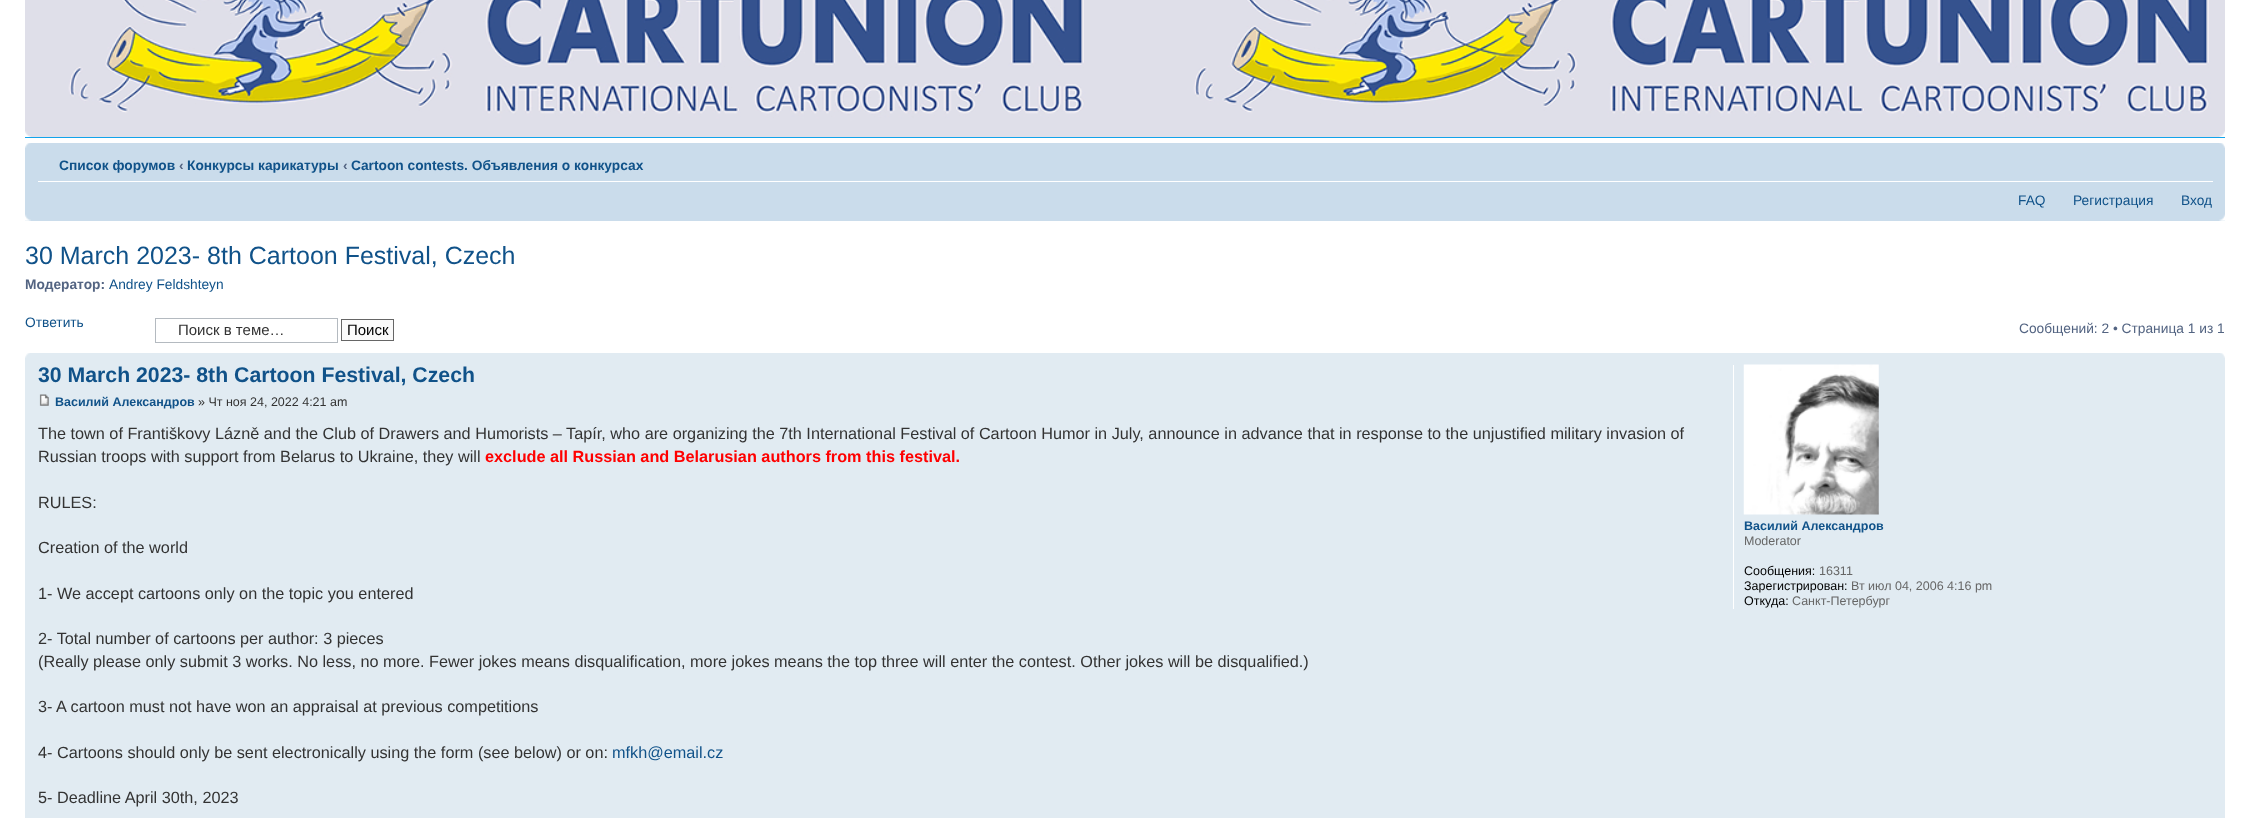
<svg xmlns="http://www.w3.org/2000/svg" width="2249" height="818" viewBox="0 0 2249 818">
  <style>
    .t1 { font: bold 13.75px Liberation Sans; fill: #105289; }
    .t2 { font: bold 13.75px Liberation Sans; fill: #536482; }
    .t3 { font: 13.75px Liberation Sans; fill: #105289; }
    .t4 { font: 25px Liberation Sans; fill: #105289; }
    .t5 { font: 15px Liberation Sans; fill: #333; }
    .t6 { font: 15px Liberation Sans; fill: #000; }
    .t7 { font: 13.75px Liberation Sans; fill: #536482; }
    .t8 { font: bold 21.25px Liberation Sans; fill: #105289; }
    .t9 { font: bold 12.5px Liberation Sans; fill: #105289; }
    .t10 { font: 12.5px Liberation Sans; fill: #333; }
    .t11 { font: 16.25px Liberation Sans; fill: #333; }
    .t12 { font: bold 16.25px Liberation Sans; fill: #f00; }
    .t13 { font: 16.25px Liberation Sans; fill: #105289; }
    .t14 { font: 12.5px Liberation Sans; fill: #666; }
    .t15 { font: 12.5px Liberation Sans; fill: #000; }
  </style>
  <rect width="100%" height="100%" fill="#fff"/>
  <rect x="25" y="137" width="2200" height="1" fill="#12a3eb"/>
  <image x="25" y="0" width="2200" height="137" href="images/1.png"/>
  <image x="25" y="131" width="6" height="6" href="images/2.png"/>
  <image x="2219" y="131" width="6" height="6" href="images/3.png"/>
  <rect x="25" y="143" width="2200" height="78" fill="#cadceb"/>
  <image x="25" y="143" width="6" height="5" href="images/4.png"/>
  <image x="2219" y="143" width="6" height="5" href="images/5.png"/>
  <rect x="38" y="181" width="2175" height="1" fill="#fff"/>
  <text x="59" y="170" class="t1">Список форумов</text>
  <text x="179" y="170" class="t2">‹</text>
  <text x="187" y="170" class="t1">Конкурсы карикатуры</text>
  <text x="343" y="170" class="t2">‹</text>
  <text x="351" y="170" class="t1">Cartoon contests. Объявления о конкурсах</text>
  <text x="2018" y="205" class="t3">FAQ</text>
  <text x="2073" y="205" class="t3">Регистрация</text>
  <text x="2181" y="205" class="t3">Вход</text>
  <image x="25" y="214" width="6" height="7" href="images/6.png"/>
  <image x="2219" y="214" width="6" height="7" href="images/7.png"/>
  <text x="25" y="264" class="t4">30 March 2023- 8th Cartoon Festival, Czech</text>
  <text x="25" y="289" class="t2">Модератор:</text>
  <text x="109" y="289" class="t3">Andrey Feldshteyn</text>
  <text x="25" y="327" class="t3">Ответить</text>
  <rect x="155.5" y="318.5" width="182" height="24" fill="none" stroke="#b4bac0"/>
  <text x="178" y="335" class="t5">Поиск в теме…</text>
  <rect x="341.5" y="319.5" width="52" height="21" fill="#fafafa" stroke="#666"/>
  <text x="347" y="335" class="t6">Поиск</text>
  <text x="2019" y="333" class="t7">Сообщений: 2 • Страница 1 из 1</text>
  <rect x="25" y="353" width="2200" height="465" fill="#e1ebf2"/>
  <image x="25" y="353" width="5" height="5" href="images/8.png"/>
  <image x="2220" y="353" width="5" height="5" href="images/9.png"/>
  <text x="38" y="382" class="t8">30 March 2023- 8th Cartoon Festival, Czech</text>
  <image x="39" y="394" width="10" height="12" href="images/10.png"/>
  <text x="55" y="406" class="t9">Василий Александров</text>
  <text x="198" y="406" class="t10">» Чт ноя 24, 2022 4:21 am</text>
  <text x="38" y="439" class="t11">The town of Františkovy Lázně and the Club of Drawers and Humorists – Tapír, who are organizing the 7th International Festival of Cartoon Humor in July, announce in advance that in response to the unjustified military invasion of</text>
  <text x="38" y="462" class="t11">Russian troops with support from Belarus to Ukraine, they will</text>
  <text x="485" y="462" class="t12">exclude all Russian and Belarusian authors from this festival.</text>
  <text x="38" y="508" class="t11">RULES:</text>
  <text x="38" y="553" class="t11">Creation of the world</text>
  <text x="38" y="599" class="t11">1- We accept cartoons only on the topic you entered</text>
  <text x="38" y="644" class="t11">2- Total number of cartoons per author: 3 pieces</text>
  <text x="38" y="667" class="t11">(Really please only submit 3 works. No less, no more. Fewer jokes means disqualification, more jokes means the top three will enter the contest. Other jokes will be disqualified.)</text>
  <text x="38" y="712" class="t11">3- A cartoon must not have won an appraisal at previous competitions</text>
  <text x="38" y="758" class="t11">4- Cartoons should only be sent electronically using the form (see below) or on:</text>
  <text x="612" y="758" class="t13">mfkh@email.cz</text>
  <text x="38" y="803" class="t11">5- Deadline April 30th, 2023</text>
  <rect x="1733" y="365" width="1" height="244" fill="#fff"/>
  <image x="1743" y="364" width="136" height="151" href="images/11.png"/>
  <text x="1744" y="530" class="t9">Василий Александров</text>
  <text x="1744" y="545" class="t14">Moderator</text>
  <text x="1744" y="575" class="t15">Сообщения:</text>
  <text x="1819" y="575" class="t14">16311</text>
  <text x="1744" y="590" class="t15">Зарегистрирован:</text>
  <text x="1851" y="590" class="t14">Вт июл 04, 2006 4:16 pm</text>
  <text x="1744" y="605" class="t15">Откуда:</text>
  <text x="1792" y="605" class="t14">Санкт-Петербург</text>
</svg>
